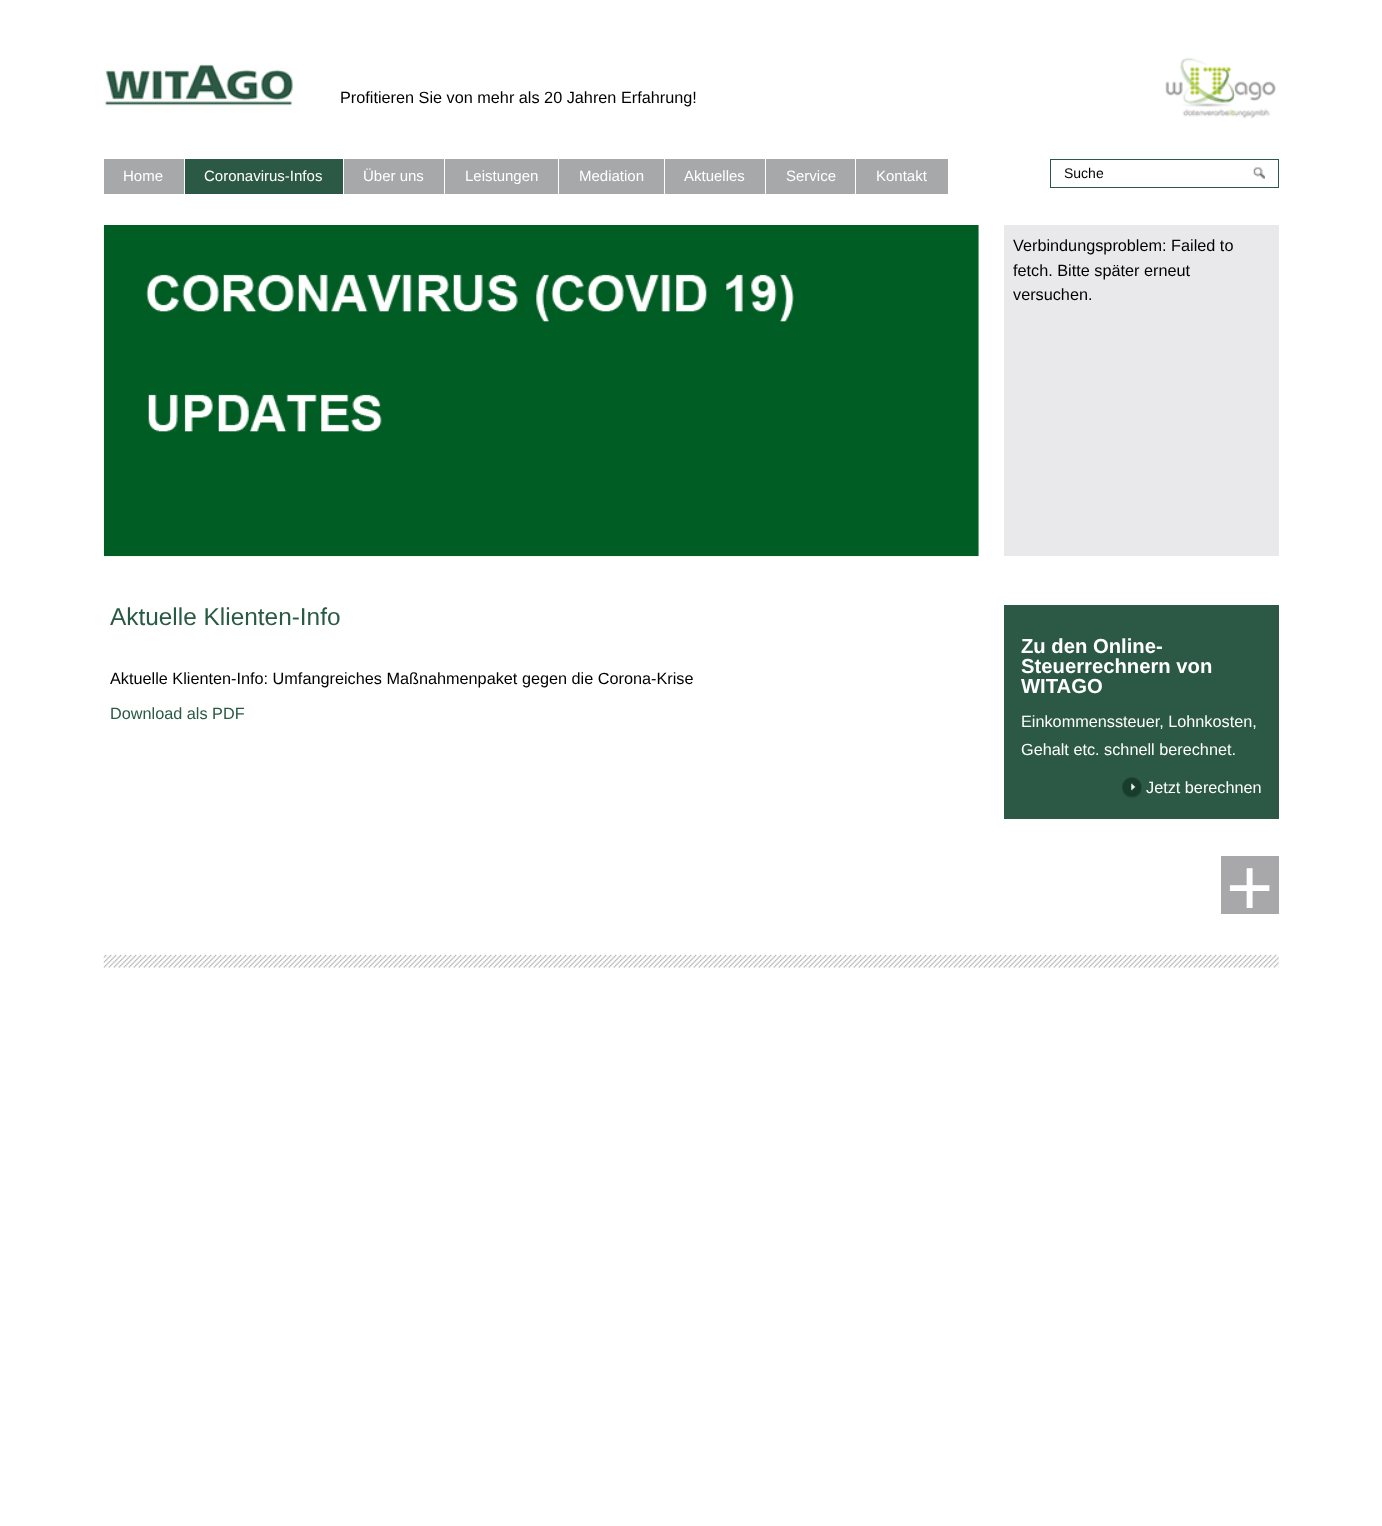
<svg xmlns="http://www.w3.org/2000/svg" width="1382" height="1526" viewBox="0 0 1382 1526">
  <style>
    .t1 { font: 16.25px Liberation Sans; fill: #000; }
    .t2 { font: 15px Liberation Sans; fill: #fff; }
    .t3 { font: 14px Liberation Sans; fill: #000; }
    .t4 { font: 24.4px Liberation Sans; fill: #295a45; }
    .t5 { font: 16.25px Liberation Sans; fill: #295a45; }
    .t6 { font: bold 20.25px Liberation Sans; fill: #fff; }
    .t7 { font: 16.25px Liberation Sans; fill: #fff; }
    .t8 { font: 81px Liberation Sans; fill: #fff; }
  </style>
  <rect width="100%" height="100%" fill="#fff"/>
  <image x="104" y="64" width="189" height="42" href="images/1.png"/>
  <text x="340" y="103" class="t1">Profitieren Sie von mehr als 20 Jahren Erfahrung!</text>
  <image x="1165" y="57" width="112" height="62" href="images/2.png"/>
  <rect x="104" y="159" width="80" height="35" fill="#a7a8aa"/>
  <text x="123" y="181" class="t2">Home</text>
  <rect x="185" y="159" width="158" height="35" fill="#2c5945"/>
  <text x="204" y="181" class="t2">Coronavirus-Infos</text>
  <rect x="344" y="159" width="100" height="35" fill="#a7a8aa"/>
  <text x="363" y="181" class="t2">Über uns</text>
  <rect x="445" y="159" width="113" height="35" fill="#a7a8aa"/>
  <text x="465" y="181" class="t2">Leistungen</text>
  <rect x="559" y="159" width="105" height="35" fill="#a7a8aa"/>
  <text x="579" y="181" class="t2">Mediation</text>
  <rect x="665" y="159" width="100" height="35" fill="#a7a8aa"/>
  <text x="684" y="181" class="t2">Aktuelles</text>
  <rect x="766" y="159" width="89" height="35" fill="#a7a8aa"/>
  <text x="786" y="181" class="t2">Service</text>
  <rect x="856" y="159" width="92" height="35" fill="#a7a8aa"/>
  <text x="876" y="181" class="t2">Kontakt</text>
  <rect x="1050.5" y="159.5" width="228" height="28" fill="none" stroke="#2c5945"/>
  <text x="1064" y="178" class="t3">Suche</text>
  <image x="1253" y="167" width="12" height="12" href="images/3.png"/>
  <image x="103" y="225" width="876" height="332" href="images/4.png"/>
  <rect x="1004" y="225" width="275" height="331" fill="#e9e9eb"/>
  <text x="1013" y="251" class="t1">Verbindungsproblem: Failed to</text>
  <text x="1013" y="276" class="t1">fetch. Bitte später erneut</text>
  <text x="1013" y="300" class="t1">versuchen.</text>
  <text x="110" y="625" class="t4">Aktuelle Klienten-Info</text>
  <text x="110" y="684" class="t1">Aktuelle Klienten-Info: Umfangreiches Maßnahmenpaket gegen die Corona-Krise</text>
  <text x="110" y="719" class="t5">Download als PDF</text>
  <rect x="1004" y="605" width="275" height="214" fill="#2c5945"/>
  <text x="1021" y="653" class="t6">Zu den Online-</text>
  <text x="1021" y="673" class="t6">Steuerrechnern von</text>
  <text x="1021" y="693" class="t6">WITAGO</text>
  <text x="1021" y="727" class="t7">Einkommenssteuer, Lohnkosten,</text>
  <text x="1021" y="755" class="t7">Gehalt etc. schnell berechnet.</text>
  <image x="1122" y="777" width="20" height="21" href="images/5.png"/>
  <text x="1146" y="793" class="t7">Jetzt berechnen</text>
  <rect x="1221" y="856" width="58" height="58" fill="#a8a8aa"/>
  <text x="1226" y="915" class="t8">+</text>
  <image x="103" y="954" width="1176" height="14" href="images/6.png"/>
</svg>
